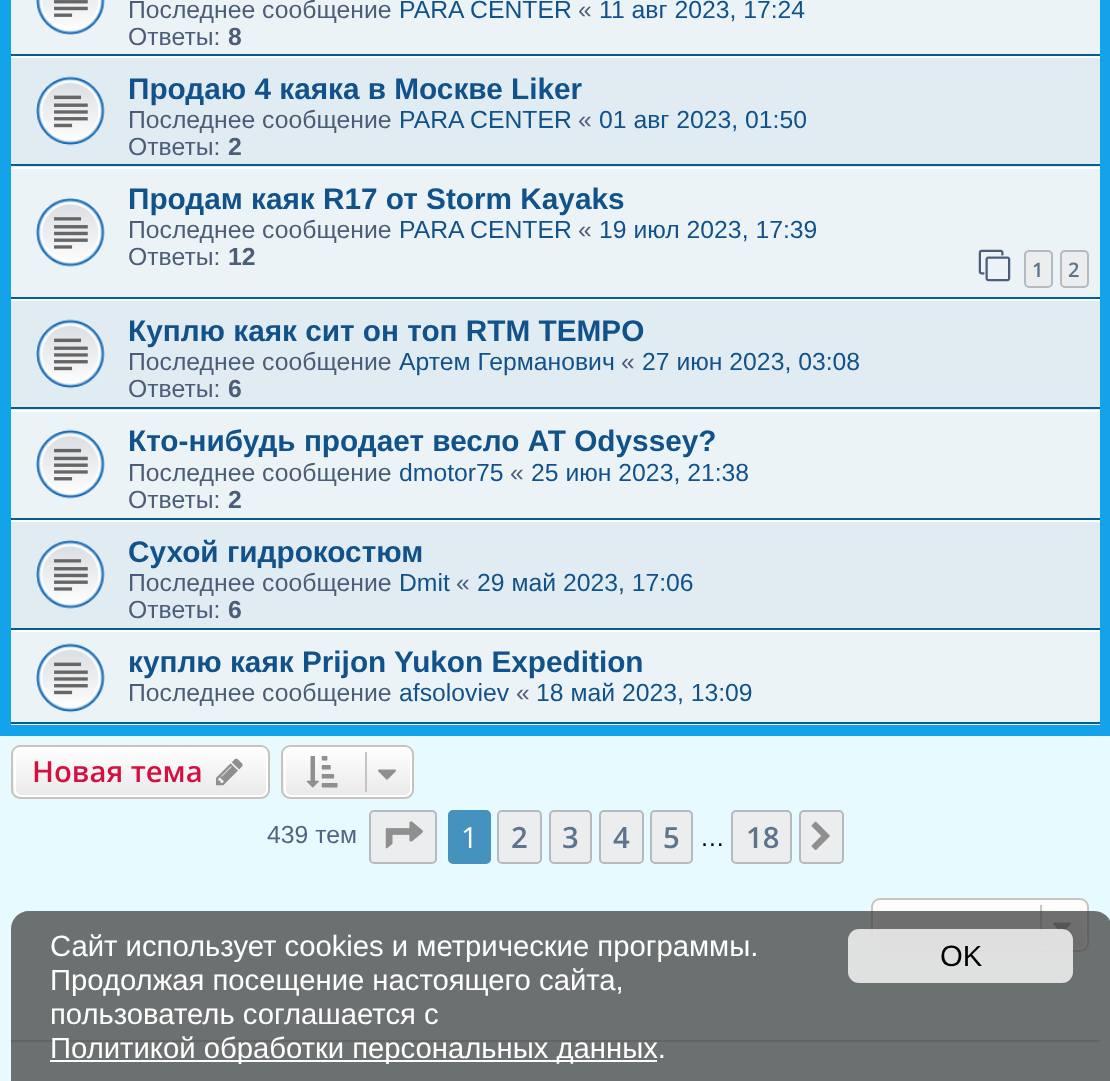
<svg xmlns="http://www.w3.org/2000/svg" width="1110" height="1081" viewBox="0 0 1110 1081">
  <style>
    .t1 { font: 24.75px Liberation Sans; fill: #4c5d77; }
    .t2 { font: 24.75px Liberation Sans; fill: #105289; }
    .t3 { font: bold 24.75px Liberation Sans; fill: #4c5d77; }
    .t4 { font: bold 29.75px Liberation Sans; fill: #105289; }
    .t5 { font: 600 20px Open Sans; fill: #5c758c; }
    .t6 { font: 600 29.25px Open Sans; fill: #d31141; }
    .t7 { font: 24.75px Liberation Sans; fill: #536482; }
    .t8 { font: 29.25px Open Sans; fill: #fff; }
    .t9 { font: 600 29.25px Open Sans; fill: #5c758c; }
    .t10 { font: 24.75px Liberation Sans; fill: #000; }
    .t11 { font: 29.25px Liberation Sans; fill: #fff; }
    .t12 { font: 29.25px Liberation Sans; fill: #000; }
  </style>
  <defs>
    <clipPath id="clip1"><rect x="11" y="745" width="259" height="54" rx="9"/></clipPath>
    <linearGradient id="g1" gradientUnits="userSpaceOnUse" x1="141" y1="747" x2="141" y2="797"><stop offset="0" stop-color="#fff"/><stop offset="1" stop-color="#e9e9e9"/></linearGradient>
    <clipPath id="clip2"><rect x="281" y="745" width="133" height="54" rx="9"/></clipPath>
    <linearGradient id="g2" gradientUnits="userSpaceOnUse" x1="348" y1="747" x2="348" y2="797"><stop offset="0" stop-color="#fff"/><stop offset="1" stop-color="#e9e9e9"/></linearGradient>
    <clipPath id="clip3"><rect x="871" y="898" width="218" height="54" rx="9"/></clipPath>
    <linearGradient id="g3" gradientUnits="userSpaceOnUse" x1="980" y1="900" x2="980" y2="950"><stop offset="0" stop-color="#fff"/><stop offset="1" stop-color="#e9e9e9"/></linearGradient>
  </defs>
  <rect width="100%" height="100%" fill="#e7faff"/>
  <rect x="0" y="0" width="1110" height="736" fill="#12a3eb"/>
  <rect x="11" y="0" width="1089" height="54" fill="#ecf3f7"/>
  <rect x="11" y="54" width="1089" height="2" fill="#00608f"/>
  <image x="36" y="0" width="69" height="35" href="images/1.png"/>
  <text x="128" y="18" class="t1">Последнее сообщение</text>
  <text x="399" y="18" class="t2">PARA CENTER</text>
  <text x="578" y="18" class="t1">«</text>
  <text x="599" y="18" class="t2">11 авг 2023, 17:24</text>
  <text x="128" y="45" class="t1">Ответы:</text>
  <text x="228" y="45" class="t3">8</text>
  <rect x="11" y="58" width="1089" height="109" fill="#e1ebf2"/>
  <rect x="11" y="56" width="1089" height="2" fill="#fff"/>
  <rect x="11" y="164" width="1089" height="2" fill="#00608f"/>
  <image x="36" y="76" width="69" height="70" href="images/2.png"/>
  <text x="128" y="99" class="t4">Продаю 4 каяка в Москве Liker</text>
  <text x="128" y="128" class="t1">Последнее сообщение</text>
  <text x="399" y="128" class="t2">PARA CENTER</text>
  <text x="578" y="128" class="t1">«</text>
  <text x="599" y="128" class="t2">01 авг 2023, 01:50</text>
  <text x="128" y="155" class="t1">Ответы:</text>
  <text x="228" y="155" class="t3">2</text>
  <rect x="11" y="169" width="1089" height="128" fill="#ecf3f7"/>
  <rect x="11" y="167" width="1089" height="2" fill="#fff"/>
  <rect x="11" y="297" width="1089" height="2" fill="#00608f"/>
  <image x="36" y="198" width="69" height="69" href="images/3.png"/>
  <text x="128" y="209" class="t4">Продам каяк R17 от Storm Kayaks</text>
  <text x="128" y="238" class="t1">Последнее сообщение</text>
  <text x="399" y="238" class="t2">PARA CENTER</text>
  <text x="578" y="238" class="t1">«</text>
  <text x="599" y="238" class="t2">19 июл 2023, 17:39</text>
  <text x="128" y="265" class="t1">Ответы:</text>
  <text x="228" y="265" class="t3">12</text>
  <image x="978" y="249" width="33" height="33" href="images/4.png"/>
  <rect x="1025" y="251" width="27" height="36" rx="4" fill="#ecedee" stroke="#b4bac0" stroke-width="2"/>
  <text x="1032" y="277" class="t5">1</text>
  <rect x="1061" y="251" width="27" height="36" rx="4" fill="#ecedee" stroke="#b4bac0" stroke-width="2"/>
  <text x="1068" y="277" class="t5">2</text>
  <rect x="11" y="301" width="1089" height="109" fill="#e1ebf2"/>
  <rect x="11" y="299" width="1089" height="2" fill="#fff"/>
  <rect x="11" y="407" width="1089" height="2" fill="#00608f"/>
  <image x="36" y="319" width="69" height="70" href="images/5.png"/>
  <text x="128" y="341" class="t4">Куплю каяк сит он топ RTM TEMPO</text>
  <text x="128" y="370" class="t1">Последнее сообщение</text>
  <text x="399" y="370" class="t2">Артем Германович</text>
  <text x="621" y="370" class="t1">«</text>
  <text x="642" y="370" class="t2">27 июн 2023, 03:08</text>
  <text x="128" y="397" class="t1">Ответы:</text>
  <text x="228" y="397" class="t3">6</text>
  <rect x="11" y="412" width="1089" height="106" fill="#ecf3f7"/>
  <rect x="11" y="410" width="1089" height="2" fill="#fff"/>
  <rect x="11" y="518" width="1089" height="2" fill="#00608f"/>
  <image x="36" y="429" width="69" height="70" href="images/6.png"/>
  <text x="128" y="451" class="t4">Кто-нибудь продает весло АТ Odyssey?</text>
  <text x="128" y="481" class="t1">Последнее сообщение</text>
  <text x="399" y="481" class="t2">dmotor75</text>
  <text x="510" y="481" class="t1">«</text>
  <text x="531" y="481" class="t2">25 июн 2023, 21:38</text>
  <text x="128" y="508" class="t1">Ответы:</text>
  <text x="228" y="508" class="t3">2</text>
  <rect x="11" y="522" width="1089" height="106" fill="#e1ebf2"/>
  <rect x="11" y="520" width="1089" height="2" fill="#fff"/>
  <rect x="11" y="628" width="1089" height="2" fill="#00608f"/>
  <image x="36" y="540" width="69" height="69" href="images/7.png"/>
  <text x="128" y="562" class="t4">Сухой гидрокостюм</text>
  <text x="128" y="591" class="t1">Последнее сообщение</text>
  <text x="399" y="591" class="t2">Dmit</text>
  <text x="456" y="591" class="t1">«</text>
  <text x="477" y="591" class="t2">29 май 2023, 17:06</text>
  <text x="128" y="618" class="t1">Ответы:</text>
  <text x="228" y="618" class="t3">6</text>
  <rect x="11" y="632" width="1089" height="93" fill="#ecf3f7"/>
  <rect x="11" y="630" width="1089" height="2" fill="#fff"/>
  <rect x="11" y="722" width="1089" height="2" fill="#00608f"/>
  <image x="36" y="643" width="69" height="70" href="images/8.png"/>
  <text x="128" y="672" class="t4">куплю каяк Prijon Yukon Expedition</text>
  <text x="128" y="701" class="t1">Последнее сообщение</text>
  <text x="399" y="701" class="t2">afsoloviev</text>
  <text x="516" y="701" class="t1">«</text>
  <text x="536" y="701" class="t2">18 май 2023, 13:09</text>
  <g clip-path="url(#clip1)">
    <rect x="11" y="747" width="259" height="50" fill="url(#g1)"/>
  </g>
  <rect x="15" y="748" width="252" height="48" rx="6" fill="none" stroke="#fff" stroke-width="2"/>
  <rect x="12" y="746" width="257" height="52" rx="8" fill="none" stroke="#c7c3bf" stroke-width="2"/>
  <text x="32" y="782" class="t6">Новая тема</text>
  <image x="216" y="758" width="27" height="28" href="images/9.png"/>
  <g clip-path="url(#clip2)">
    <rect x="281" y="747" width="133" height="50" fill="url(#g2)"/>
  </g>
  <rect x="285" y="748" width="126" height="48" rx="6" fill="none" stroke="#fff" stroke-width="2"/>
  <rect x="282" y="746" width="131" height="52" rx="8" fill="none" stroke="#c7c3bf" stroke-width="2"/>
  <image x="306" y="756" width="32" height="32" href="images/10.png"/>
  <rect x="365" y="752" width="2" height="40" fill="#c7c3bf"/>
  <image x="378" y="769" width="18" height="11" href="images/11.png"/>
  <text x="267" y="843" class="t7">439 тем</text>
  <rect x="370" y="811" width="66" height="52" rx="4" fill="#ecedee" stroke="#b4bac0" stroke-width="2"/>
  <image x="385" y="821" width="38" height="28" href="images/12.png"/>
  <rect x="449" y="811" width="41" height="52" rx="4" fill="#4692bf" stroke="#4692bf" stroke-width="2"/>
  <text x="461" y="848" class="t8">1</text>
  <rect x="498" y="811" width="43" height="52" rx="4" fill="#ecedee" stroke="#b4bac0" stroke-width="2"/>
  <text x="511" y="848" class="t9">2</text>
  <rect x="550" y="811" width="41" height="52" rx="4" fill="#ecedee" stroke="#b4bac0" stroke-width="2"/>
  <text x="562" y="848" class="t9">3</text>
  <rect x="600" y="811" width="43" height="52" rx="4" fill="#ecedee" stroke="#b4bac0" stroke-width="2"/>
  <text x="613" y="848" class="t9">4</text>
  <rect x="651" y="811" width="41" height="52" rx="4" fill="#ecedee" stroke="#b4bac0" stroke-width="2"/>
  <text x="663" y="848" class="t9">5</text>
  <text x="700" y="846" class="t10">…</text>
  <rect x="732" y="811" width="59" height="52" rx="4" fill="#ecedee" stroke="#b4bac0" stroke-width="2"/>
  <text x="746" y="848" class="t9">18</text>
  <rect x="800" y="811" width="43" height="52" rx="4" fill="#ecedee" stroke="#b4bac0" stroke-width="2"/>
  <image x="811" y="821" width="19" height="29" href="images/13.png"/>
  <g clip-path="url(#clip3)">
    <rect x="871" y="900" width="218" height="50" fill="url(#g3)"/>
  </g>
  <rect x="874" y="901" width="212" height="48" rx="6" fill="none" stroke="#fff" stroke-width="2"/>
  <rect x="872" y="899" width="216" height="52" rx="8" fill="none" stroke="#c7c3bf" stroke-width="2"/>
  <rect x="1040" y="905" width="2" height="40" fill="#c7c3bf"/>
  <image x="1053" y="922" width="18" height="11" href="images/11.png"/>
  <rect x="11" y="1040" width="1089" height="2" fill="#ccc"/>
  <path d="M29 911H1094C1104 911 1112 919 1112 929V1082H11V929C11 919 19 911 29 911Z" fill="#424242bf"/>
  <text x="50" y="956" class="t11">Сайт использует cookies и метрические программы.</text>
  <text x="50" y="990" class="t11">Продолжая посещение настоящего сайта,</text>
  <text x="50" y="1024" class="t11">пользователь соглашается с</text>
  <rect x="50" y="1060" width="607" height="2" fill="#fff"/>
  <text x="50" y="1058" class="t11">Политикой обработки персональных данных.</text>
  <rect x="848" y="929" width="225" height="54" rx="11" fill="#f2f2f2db"/>
  <text x="940" y="966" class="t12">OK</text>
</svg>
